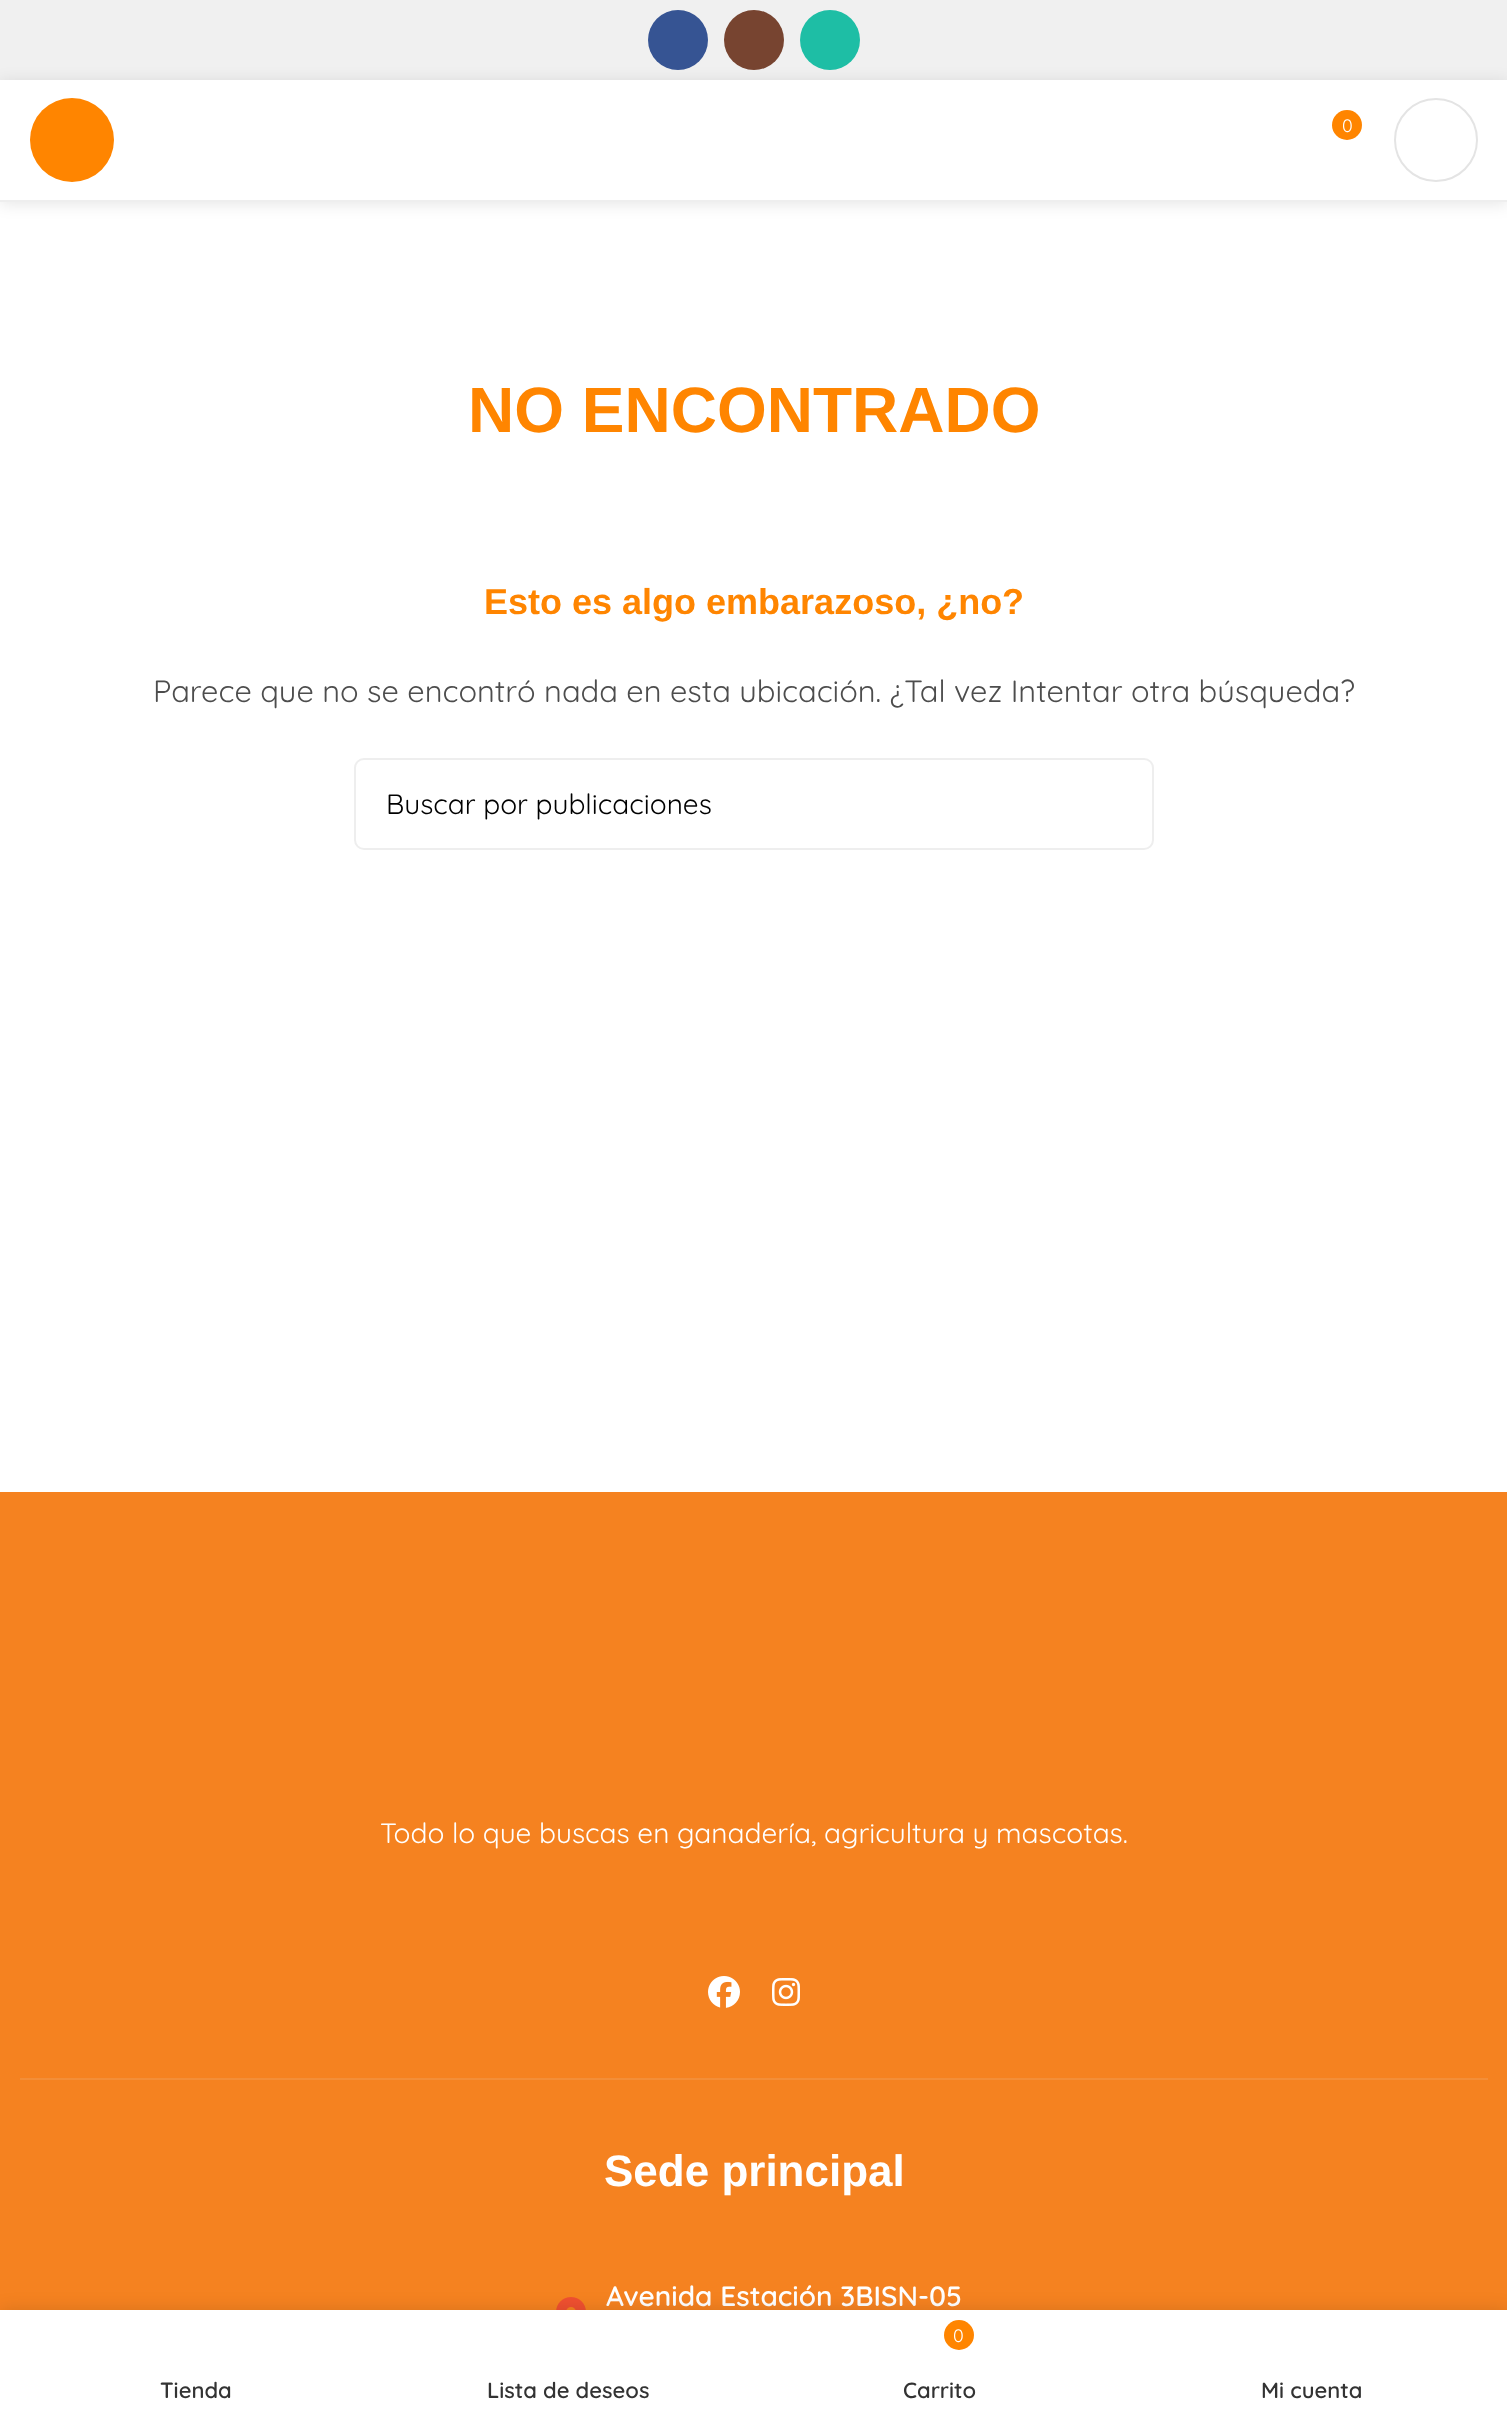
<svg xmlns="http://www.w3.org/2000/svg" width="1507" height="2419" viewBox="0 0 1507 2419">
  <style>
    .t1 { font: 18px Quicksand; fill: #fff; }
    .t2 { font: bold 64px Liberation Sans; fill: #ff8500; }
    .t3 { font: bold 36px Liberation Sans; fill: #ff8500; }
    .t4 { font: 30.8px Quicksand; fill: #4d4d4d; }
    .t5 { font: 28px Quicksand; fill: #000; }
    .t6 { font: 28px Quicksand; fill: #fff; }
    .t7 { font: bold 44px Liberation Sans; fill: #fff; }
    .t8 { font: 600 28px Quicksand; fill: #fff; }
    .t9 { font: 600 22px Quicksand; fill: #333; }
  </style>
  <defs>
    <clipPath id="clip1"><path d="M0 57H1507V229H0ZM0 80H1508V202H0Z" clip-rule="evenodd"/></clipPath>
  </defs>
  <rect width="100%" height="100%" fill="#fff"/>
  <rect x="0" y="0" width="1507" height="80" fill="#f0f0f0"/>
  <g clip-path="url(#clip1)">
    <rect x="0" y="82" width="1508" height="122" fill="#0000001a" filter="blur(8px)"/>
  </g>
  <circle cx="678" cy="40" r="30" fill="#365493"/>
  <circle cx="754" cy="40" r="30" fill="#774430"/>
  <circle cx="830" cy="40" r="30" fill="#1ebea5"/>
  <rect x="0" y="200" width="1507" height="2" fill="#eee"/>
  <circle cx="72" cy="140" r="42" fill="#ff8500"/>
  <circle cx="1347" cy="125" r="15" fill="#ff8500"/>
  <text x="1342" y="132" class="t1">0</text>
  <circle cx="1436" cy="140" r="41" fill="none" stroke="#e4e4e4" stroke-width="2"/>
  <text x="468" y="432" class="t2">NO ENCONTRADO</text>
  <text x="484" y="614" class="t3">Esto es algo embarazoso, ¿no?</text>
  <text x="153" y="702" class="t4">Parece que no se encontró nada en esta ubicación. ¿Tal vez Intentar otra búsqueda?</text>
  <rect x="355" y="759" width="798" height="90" rx="9" fill="none" stroke="#eee" stroke-width="2"/>
  <text x="386" y="814" class="t5">Buscar por publicaciones</text>
  <rect x="0" y="1492" width="1507" height="818" fill="#f58220"/>
  <text x="380" y="1843" class="t6">Todo lo que buscas en ganadería, agricultura y mascotas.</text>
  <image x="708" y="1976" width="32" height="32" href="images/1.png"/>
  <image x="772" y="1978" width="28" height="28" href="images/2.png"/>
  <rect x="20" y="2078" width="1468" height="2" fill="#f38e38"/>
  <text x="604" y="2186" class="t7">Sede principal</text>
  <image x="556" y="2297" width="30" height="13" href="images/3.png"/>
  <text x="606" y="2306" class="t8">Avenida Estación 3BISN-05</text>
  <rect x="0" y="2310" width="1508" height="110" fill="#0000001f" filter="blur(9px)"/>
  <rect x="0" y="2310" width="1507" height="109" fill="#fff"/>
  <text x="160" y="2398" class="t9">Tienda</text>
  <text x="487" y="2398" class="t9">Lista de deseos</text>
  <circle cx="959" cy="2335" r="15" fill="#ff8500"/>
  <text x="953" y="2342" class="t1">0</text>
  <text x="903" y="2398" class="t9">Carrito</text>
  <text x="1261" y="2398" class="t9">Mi cuenta</text>
</svg>
